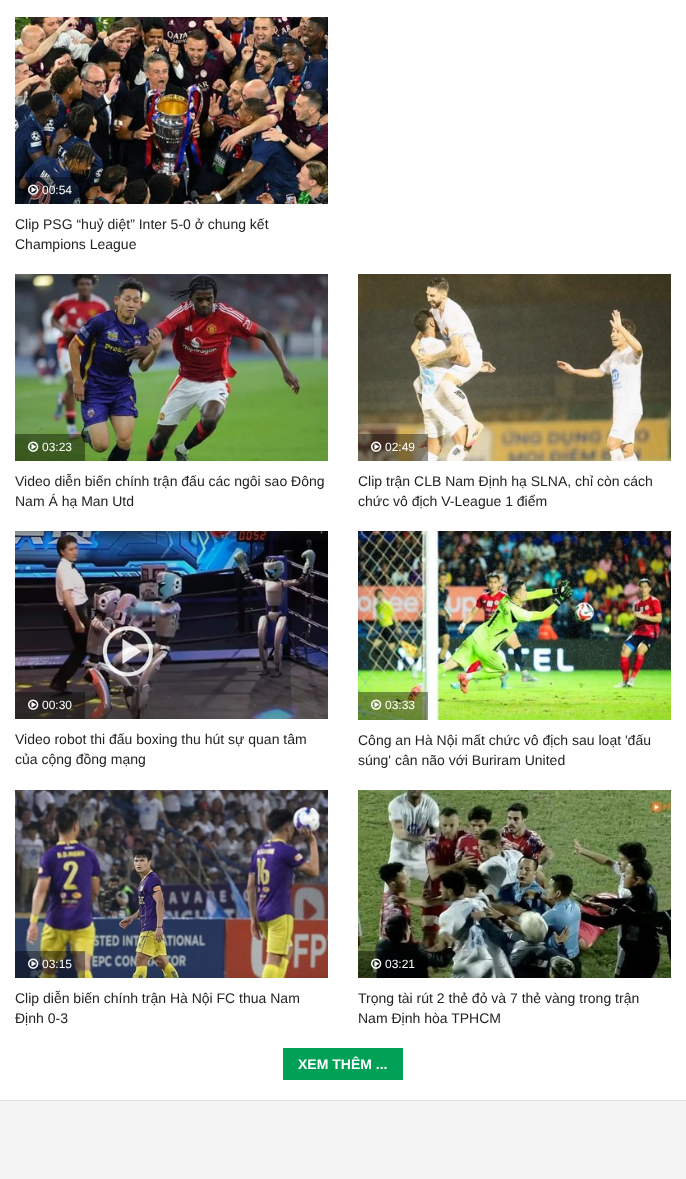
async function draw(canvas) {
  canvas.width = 686
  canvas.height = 1179
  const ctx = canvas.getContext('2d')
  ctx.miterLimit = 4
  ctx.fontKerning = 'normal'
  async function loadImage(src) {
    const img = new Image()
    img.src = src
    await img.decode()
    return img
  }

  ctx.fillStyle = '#fff'
  ctx.fillRect(0, 0, 686, 1179)
  ctx.drawImage(await loadImage('image0.png'), 15, 17, 313, 187)
  ctx.fillStyle = '#00000066'
  ctx.fillRect(15, 177, 70, 27)
  ctx.drawImage(await loadImage('image1.png'), 28, 184, 11, 11)
  ctx.font = '12px Liberation Sans'
  ctx.fillStyle = '#fff'
  ctx.fillText('00:54', 42, 194)
  ctx.font = '14px Liberation Sans'
  ctx.fillStyle = '#222'
  ctx.fillText('Clip PSG “huỷ diệt” Inter 5-0 ở chung kết', 15, 229)
  ctx.fillText('Champions League', 15, 249)
  ctx.drawImage(await loadImage('image2.png'), 15, 274, 313, 187)
  ctx.fillStyle = '#00000066'
  ctx.fillRect(15, 434, 70, 27)
  ctx.drawImage(await loadImage('image3.png'), 28, 441, 11, 11)
  ctx.font = '12px Liberation Sans'
  ctx.fillStyle = '#fff'
  ctx.fillText('03:23', 42, 451)
  ctx.font = '14px Liberation Sans'
  ctx.fillStyle = '#222'
  ctx.fillText('Video diễn biến chính trận đấu các ngôi sao Đông', 15, 486)
  ctx.fillText('Nam Á hạ Man Utd', 15, 506)
  ctx.drawImage(await loadImage('image4.png'), 358, 274, 313, 187)
  ctx.fillStyle = '#00000066'
  ctx.fillRect(358, 434, 70, 27)
  ctx.drawImage(await loadImage('image5.png'), 371, 441, 11, 11)
  ctx.font = '12px Liberation Sans'
  ctx.fillStyle = '#fff'
  ctx.fillText('02:49', 385, 451)
  ctx.font = '14px Liberation Sans'
  ctx.fillStyle = '#222'
  ctx.fillText('Clip trận CLB Nam Định hạ SLNA, chỉ còn cách', 358, 486)
  ctx.fillText('chức vô địch V-League 1 điểm', 358, 506)
  ctx.drawImage(await loadImage('image6.png'), 15, 531, 313, 188)
  ctx.fillStyle = '#00000066'
  ctx.fillRect(15, 692, 70, 27)
  ctx.drawImage(await loadImage('image7.png'), 28, 699, 11, 11)
  ctx.font = '12px Liberation Sans'
  ctx.fillStyle = '#fff'
  ctx.fillText('00:30', 42, 709)
  ctx.font = '14px Liberation Sans'
  ctx.fillStyle = '#222'
  ctx.fillText('Video robot thi đấu boxing thu hút sự quan tâm', 15, 744)
  ctx.fillText('của cộng đồng mạng', 15, 764)
  ctx.drawImage(await loadImage('image8.png'), 358, 531, 313, 189)
  ctx.fillStyle = '#00000066'
  ctx.fillRect(358, 692, 70, 28)
  ctx.drawImage(await loadImage('image9.png'), 371, 699, 11, 11)
  ctx.font = '12px Liberation Sans'
  ctx.fillStyle = '#fff'
  ctx.fillText('03:33', 385, 709)
  ctx.font = '14px Liberation Sans'
  ctx.fillStyle = '#222'
  ctx.fillText('Công an Hà Nội mất chức vô địch sau loạt \'đấu', 358, 745)
  ctx.fillText('súng\' cân não với Buriram United', 358, 765)
  ctx.drawImage(await loadImage('image10.png'), 15, 790, 313, 188)
  ctx.fillStyle = '#00000066'
  ctx.fillRect(15, 951, 70, 27)
  ctx.drawImage(await loadImage('image11.png'), 28, 958, 11, 11)
  ctx.font = '12px Liberation Sans'
  ctx.fillStyle = '#fff'
  ctx.fillText('03:15', 42, 968)
  ctx.font = '14px Liberation Sans'
  ctx.fillStyle = '#222'
  ctx.fillText('Clip diễn biến chính trận Hà Nội FC thua Nam', 15, 1003)
  ctx.fillText('Định 0-3', 15, 1023)
  ctx.drawImage(await loadImage('image12.png'), 358, 790, 313, 188)
  ctx.fillStyle = '#00000066'
  ctx.fillRect(358, 951, 70, 27)
  ctx.drawImage(await loadImage('image13.png'), 371, 958, 11, 11)
  ctx.font = '12px Liberation Sans'
  ctx.fillStyle = '#fff'
  ctx.fillText('03:21', 385, 968)
  ctx.font = '14px Liberation Sans'
  ctx.fillStyle = '#222'
  ctx.fillText('Trọng tài rút 2 thẻ đỏ và 7 thẻ vàng trong trận', 358, 1003)
  ctx.fillText('Nam Định hòa TPHCM', 358, 1023)
  ctx.fillStyle = '#00a156'
  ctx.fillRect(283, 1048, 120, 32)
  ctx.font = 'bold 14px Liberation Sans'
  ctx.fillStyle = '#fff'
  ctx.fillText('XEM THÊM ...', 298, 1069)
  ctx.fillStyle = '#f4f4f4'
  ctx.fillRect(0, 1101, 686, 78)
  ctx.fillStyle = '#dedede'
  ctx.fillRect(0, 1100, 686, 1)
}

draw(document.querySelector('canvas'))
